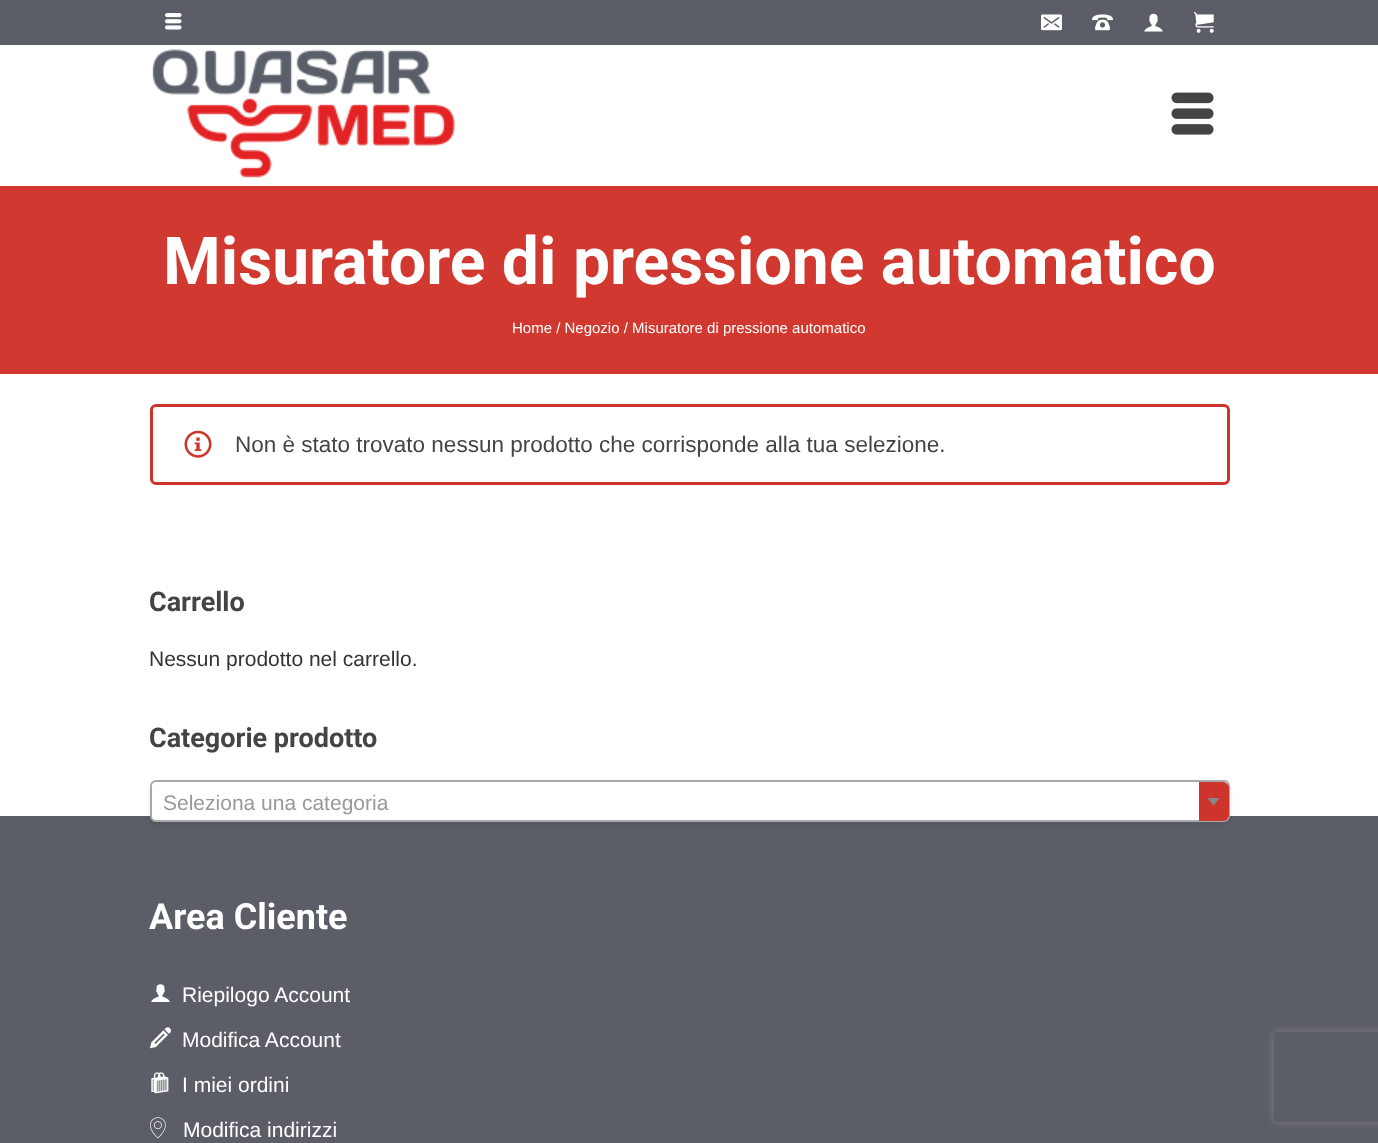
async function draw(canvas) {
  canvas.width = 1378
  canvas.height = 1143
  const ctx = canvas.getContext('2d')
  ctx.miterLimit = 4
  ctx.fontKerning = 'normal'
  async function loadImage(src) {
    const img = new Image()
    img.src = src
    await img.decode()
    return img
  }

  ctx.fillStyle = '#fff'
  ctx.fillRect(0, 0, 1378, 1143)
  ctx.fillStyle = '#5b5e67'
  ctx.fillRect(0, 0, 1378, 45)
  ctx.drawImage(await loadImage('image0.png'), 165, 13, 17, 17)
  ctx.drawImage(await loadImage('image1.png'), 1041, 14, 21, 17)
  ctx.drawImage(await loadImage('image2.png'), 1092, 14, 21, 17)
  ctx.drawImage(await loadImage('image3.png'), 1144, 13, 19, 19)
  ctx.drawImage(await loadImage('image4.png'), 1194, 11, 20, 22)
  ctx.drawImage(await loadImage('image5.png'), 152, 49, 303, 129)
  ctx.drawImage(await loadImage('image6.png'), 1171, 92, 43, 43)
  ctx.fillStyle = '#d13930'
  ctx.fillRect(0, 186, 1378, 188)
  ctx.font = 'bold 66px Roboto'
  ctx.fillStyle = '#fff'
  ctx.fillText('Misuratore di pressione automatico', 163, 284)
  ctx.font = '15px Liberation Sans'
  ctx.fillText('Home / Negozio / Misuratore di pressione automatico', 512, 333)
  ctx.beginPath()
  ctx.roundRect(151.5, 405.5, 1077, 78, 4.5)
  ctx.strokeStyle = '#cc342c'
  ctx.lineWidth = 3
  ctx.stroke()
  ctx.drawImage(await loadImage('image7.png'), 184, 430, 28, 28)
  ctx.font = '22.5px Liberation Sans'
  ctx.fillStyle = '#444'
  ctx.fillText('Non è stato trovato nessun prodotto che corrisponde alla tua selezione.', 235, 452)
  ctx.font = 'bold 27px Roboto'
  ctx.fillText('Carrello', 149, 611)
  ctx.font = '21px Liberation Sans'
  ctx.fillStyle = '#333'
  ctx.fillText('Nessun prodotto nel carrello.', 149, 666)
  ctx.font = 'bold 27px Roboto'
  ctx.fillStyle = '#444'
  ctx.fillText('Categorie prodotto', 149, 747)
  ctx.fillStyle = '#5b5e67'
  ctx.fillRect(0, 816, 1378, 327)
  ctx.fillStyle = '#0000001a'
  ctx.filter = 'blur(2px)'
  ctx.beginPath()
  ctx.roundRect(150, 782, 1080, 42, 6)
  ctx.fill()
  ctx.filter = 'none'
  ctx.fillStyle = '#fff'
  ctx.beginPath()
  ctx.roundRect(151, 781, 1078, 40, 5)
  ctx.fill()
  ctx.strokeStyle = '#aaa'
  ctx.lineWidth = 2
  ctx.stroke()
  ctx.font = '21px Liberation Sans'
  ctx.fillStyle = '#999'
  ctx.fillText('Seleziona una categoria', 163, 810)
  ctx.fillStyle = '#cc342c'
  ctx.beginPath()
  ctx.roundRect(1199, 782, 30, 39, [0, 6, 6, 0])
  ctx.fill()
  ctx.fillStyle = '#888'
  ctx.beginPath()
  ctx.moveTo(1207.5, 798)
  ctx.lineTo(1219.5, 798)
  ctx.lineTo(1213.5, 805.5)
  ctx.closePath()
  ctx.fill()
  ctx.font = 'bold 36px Roboto'
  ctx.fillStyle = '#fff'
  ctx.fillText('Area Cliente', 149, 929)
  ctx.drawImage(await loadImage('image8.png'), 151, 984, 19, 18)
  ctx.font = '21px Liberation Sans'
  ctx.fillText('Riepilogo Account', 182, 1002)
  ctx.drawImage(await loadImage('image9.png'), 150, 1027, 21, 22)
  ctx.fillText('Modifica Account', 182, 1047)
  ctx.drawImage(await loadImage('image10.png'), 151, 1072, 18, 22)
  ctx.fillText('I miei ordini', 182, 1092)
  ctx.drawImage(await loadImage('image11.png'), 150, 1117, 16, 22)
  ctx.fillText('Modifica indirizzi', 183, 1137)
  ctx.save()
  ctx.beginPath()
  ctx.moveTo(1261, 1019)
  ctx.lineTo(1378, 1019)
  ctx.lineTo(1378, 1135)
  ctx.lineTo(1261, 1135)
  ctx.closePath()
  ctx.moveTo(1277, 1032)
  ctx.lineTo(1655, 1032)
  ctx.bezierCurveTo(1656.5, 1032, 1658, 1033.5, 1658, 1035)
  ctx.lineTo(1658, 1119)
  ctx.bezierCurveTo(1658, 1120.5, 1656.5, 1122, 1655, 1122)
  ctx.lineTo(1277, 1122)
  ctx.bezierCurveTo(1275.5, 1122, 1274, 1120.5, 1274, 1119)
  ctx.lineTo(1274, 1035)
  ctx.bezierCurveTo(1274, 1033.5, 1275.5, 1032, 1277, 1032)
  ctx.closePath()
  ctx.clip('evenodd')
  ctx.fillStyle = '#808080'
  ctx.filter = 'blur(4px)'
  ctx.beginPath()
  ctx.roundRect(1274, 1032, 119, 90, 3)
  ctx.fill()
  ctx.filter = 'none'
  ctx.restore()
}

draw(document.querySelector('canvas'))
